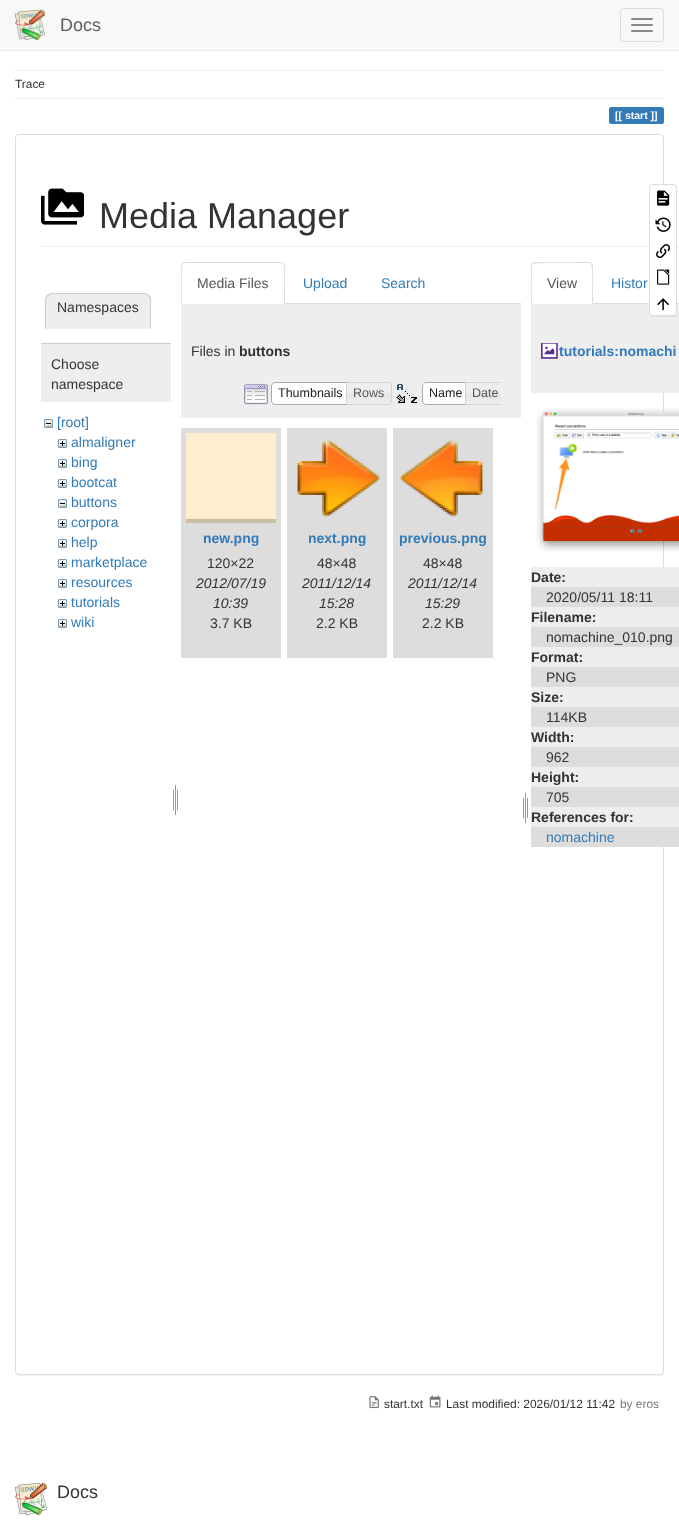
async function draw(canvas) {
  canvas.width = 679
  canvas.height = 1528
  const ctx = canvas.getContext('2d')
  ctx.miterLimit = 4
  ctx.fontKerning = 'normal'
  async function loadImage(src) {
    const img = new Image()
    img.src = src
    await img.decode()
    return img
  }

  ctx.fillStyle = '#fff'
  ctx.fillRect(0, 0, 679, 1528)
  ctx.fillStyle = '#f8f8f8'
  ctx.fillRect(0, 0, 679, 50)
  ctx.fillStyle = '#e7e7e7'
  ctx.fillRect(0, 50, 679, 1)
  ctx.drawImage(await loadImage('image0.png'), 15, 10, 30, 30)
  ctx.font = '18px Liberation Sans'
  ctx.fillStyle = '#5e5e5e'
  ctx.fillText('Docs', 60, 31)
  ctx.beginPath()
  ctx.roundRect(620.5, 8.5, 43, 33, 3.5)
  ctx.strokeStyle = '#ddd'
  ctx.stroke()
  ctx.fillStyle = '#888'
  ctx.beginPath()
  ctx.roundRect(631, 18, 22, 2, 1)
  ctx.fill()
  ctx.beginPath()
  ctx.roundRect(631, 24, 22, 2, 1)
  ctx.fill()
  ctx.beginPath()
  ctx.roundRect(631, 30, 22, 2, 1)
  ctx.fill()
  ctx.fillStyle = '#eee'
  ctx.fillRect(15, 70, 649, 1)
  ctx.font = '11.9px Liberation Sans'
  ctx.fillStyle = '#333'
  ctx.fillText('Trace', 15, 88)
  ctx.fillStyle = '#eee'
  ctx.fillRect(15, 98, 649, 1)
  ctx.fillStyle = '#337ab7'
  ctx.beginPath()
  ctx.roundRect(609, 107, 16, 17, [2.5, 0, 0, 2.5])
  ctx.fill()
  ctx.fillRect(625, 107, 23, 17)
  ctx.beginPath()
  ctx.roundRect(648, 107, 16, 17, [0, 2.5, 2.5, 0])
  ctx.fill()
  ctx.font = 'bold 10.5px Liberation Sans'
  ctx.fillStyle = '#fff'
  ctx.fillText('[[ start ]]', 615, 119)
  ctx.fillStyle = '#0000000d'
  ctx.filter = 'blur(0.5px)'
  ctx.beginPath()
  ctx.roundRect(15, 135, 649, 1241, 4)
  ctx.fill()
  ctx.filter = 'none'
  ctx.fillStyle = '#fff'
  ctx.beginPath()
  ctx.roundRect(15.5, 134.5, 648, 1240, 3.5)
  ctx.fill()
  ctx.stroke()
  ctx.fillStyle = '#eee'
  ctx.fillRect(41, 246, 638, 1)
  ctx.fillStyle = '#ddd'
  ctx.fillRect(593, 303, 86, 1)
  ctx.fillStyle = '#eee'
  ctx.fillRect(531, 304, 148, 89)
  ctx.fillStyle = '#0000000d'
  ctx.filter = 'blur(0.5px)'
  ctx.beginPath()
  ctx.roundRect(649, 185, 28, 132, 4)
  ctx.fill()
  ctx.filter = 'none'
  ctx.fillStyle = '#fff'
  ctx.beginPath()
  ctx.roundRect(649.5, 184.5, 27, 131, 3.5)
  ctx.fill()
  ctx.stroke()
  ctx.drawImage(await loadImage('image1.png'), 657, 190, 13, 16)
  ctx.drawImage(await loadImage('image2.png'), 655, 217, 16, 15)
  ctx.drawImage(await loadImage('image3.png'), 656, 244, 15, 15)
  ctx.drawImage(await loadImage('image4.png'), 657, 269, 13, 16)
  ctx.drawImage(await loadImage('image5.png'), 657, 298, 12, 13)
  ctx.drawImage(await loadImage('image6.png'), 41, 188, 43, 37)
  ctx.font = '36px Liberation Sans'
  ctx.fillStyle = '#333'
  ctx.fillText('Media Manager', 99, 228)
  ctx.fillStyle = '#eee'
  ctx.beginPath()
  ctx.roundRect(45, 293, 106, 36, [7, 7, 0, 0])
  ctx.fill()
  ctx.fillStyle = '#ccc'
  ctx.beginPath()
  ctx.moveTo(52, 293)
  ctx.bezierCurveTo(50, 293, 48, 294, 47, 295)
  ctx.lineTo(48, 296)
  ctx.lineTo(51, 294)
  ctx.lineTo(145, 294)
  ctx.lineTo(148, 296)
  ctx.lineTo(149, 295)
  ctx.bezierCurveTo(148, 294, 146, 293, 144, 293)
  ctx.closePath()
  ctx.fill()
  ctx.beginPath()
  ctx.moveTo(151, 329)
  ctx.lineTo(151, 300)
  ctx.bezierCurveTo(151, 298, 150, 296, 149, 295)
  ctx.lineTo(148, 296)
  ctx.bezierCurveTo(149, 297, 150, 298.5, 150, 300)
  ctx.lineTo(150, 328)
  ctx.closePath()
  ctx.fill()
  ctx.fillStyle = '#eee'
  ctx.beginPath()
  ctx.moveTo(151, 329)
  ctx.lineTo(150, 328)
  ctx.lineTo(46, 328)
  ctx.lineTo(45, 329)
  ctx.closePath()
  ctx.fill()
  ctx.fillStyle = '#ccc'
  ctx.beginPath()
  ctx.moveTo(45, 329)
  ctx.lineTo(46, 328)
  ctx.lineTo(46, 300)
  ctx.bezierCurveTo(46, 298.5, 47, 297, 48, 296)
  ctx.lineTo(47, 295)
  ctx.bezierCurveTo(46, 296, 45, 298, 45, 300)
  ctx.closePath()
  ctx.fill()
  ctx.font = '14px Liberation Sans'
  ctx.fillStyle = '#333'
  ctx.fillText('Namespaces', 57, 312)
  ctx.fillStyle = '#eee'
  ctx.fillRect(41, 344, 130, 58)
  ctx.fillStyle = '#ccc'
  ctx.fillRect(41, 343, 130, 1)
  ctx.fillStyle = '#333'
  ctx.fillText('Choose', 51, 369)
  ctx.fillText('namespace', 51, 389)
  ctx.drawImage(await loadImage('image7.png'), 44, 419, 9, 9)
  ctx.fillStyle = '#337ab7'
  ctx.fillText('[root]', 57, 427)
  ctx.drawImage(await loadImage('image8.png'), 58, 439, 9, 9)
  ctx.fillText('almaligner', 71, 447)
  ctx.drawImage(await loadImage('image8.png'), 58, 459, 9, 9)
  ctx.fillText('bing', 71, 467)
  ctx.drawImage(await loadImage('image8.png'), 58, 479, 9, 9)
  ctx.fillText('bootcat', 71, 487)
  ctx.drawImage(await loadImage('image7.png'), 58, 499, 9, 9)
  ctx.fillText('buttons', 71, 507)
  ctx.drawImage(await loadImage('image8.png'), 58, 519, 9, 9)
  ctx.fillText('corpora', 71, 527)
  ctx.drawImage(await loadImage('image8.png'), 58, 539, 9, 9)
  ctx.fillText('help', 71, 547)
  ctx.drawImage(await loadImage('image8.png'), 58, 559, 9, 9)
  ctx.fillText('marketplace', 71, 567)
  ctx.drawImage(await loadImage('image8.png'), 58, 579, 9, 9)
  ctx.fillText('resources', 71, 587)
  ctx.drawImage(await loadImage('image8.png'), 58, 599, 9, 9)
  ctx.fillText('tutorials', 71, 607)
  ctx.drawImage(await loadImage('image8.png'), 58, 619, 9, 9)
  ctx.fillText('wiki', 71, 627)
  ctx.drawImage(await loadImage('image9.png'), 173, 784, 5, 31)
  ctx.fillStyle = '#ddd'
  ctx.fillRect(285, 303, 236, 1)
  ctx.beginPath()
  ctx.moveTo(185, 262)
  ctx.lineTo(182, 263)
  ctx.lineTo(183, 264)
  ctx.lineTo(185, 263)
  ctx.lineTo(281, 263)
  ctx.lineTo(283, 264)
  ctx.lineTo(284, 263)
  ctx.lineTo(281, 262)
  ctx.closePath()
  ctx.fill()
  ctx.beginPath()
  ctx.moveTo(285, 304)
  ctx.lineTo(285, 266)
  ctx.bezierCurveTo(285, 265, 284, 264, 284, 263)
  ctx.lineTo(283, 264)
  ctx.bezierCurveTo(285, 266, 284, 298, 284, 303)
  ctx.closePath()
  ctx.fill()
  ctx.beginPath()
  ctx.moveTo(181, 304)
  ctx.lineTo(182, 303)
  ctx.bezierCurveTo(182, 298, 181, 266, 183, 264)
  ctx.lineTo(182, 263)
  ctx.lineTo(181, 266)
  ctx.closePath()
  ctx.fill()
  ctx.fillStyle = '#555'
  ctx.fillText('Media Files', 197, 288)
  ctx.fillStyle = '#337ab7'
  ctx.fillText('Upload', 303, 288)
  ctx.fillText('Search', 381, 288)
  ctx.fillStyle = '#eee'
  ctx.fillRect(181, 304, 340, 114)
  ctx.fillStyle = '#333'
  ctx.fillText('Files in', 191, 356)
  ctx.font = 'bold 14px Liberation Sans'
  ctx.fillText('buttons', 239, 356)
  ctx.drawImage(await loadImage('image10.png'), 244, 384, 24, 21)
  ctx.fillStyle = '#fff'
  ctx.fillRect(271, 382, 75, 23)
  ctx.beginPath()
  ctx.roundRect(271.5, 382.5, 79, 22, [3.5, 0, 0, 3.5])
  ctx.strokeStyle = '#aaa'
  ctx.stroke()
  ctx.font = '12.5px Liberation Sans'
  ctx.fillStyle = '#212121'
  ctx.fillText('Thumbnails', 278, 397)
  ctx.drawImage(await loadImage('image11.png'), 347, 382, 45, 23)
  ctx.beginPath()
  ctx.roundRect(346.5, 382.5, 45, 22, [0, 3.5, 3.5, 0])
  ctx.strokeStyle = '#d3d3d3'
  ctx.stroke()
  ctx.fillStyle = '#555'
  ctx.fillText('Rows', 353, 397)
  ctx.drawImage(await loadImage('image12.png'), 396, 384, 21, 19)
  ctx.fillStyle = '#fff'
  ctx.fillRect(422, 382, 43, 23)
  ctx.beginPath()
  ctx.roundRect(422.5, 382.5, 47, 22, [3.5, 0, 0, 3.5])
  ctx.strokeStyle = '#aaa'
  ctx.stroke()
  ctx.fillStyle = '#212121'
  ctx.fillText('Name', 429, 397)
  ctx.drawImage(await loadImage('image13.png'), 466, 383, 35, 21)
  ctx.save()
  ctx.beginPath()
  ctx.rect(236, 382, 265, 28)
  ctx.clip()
  ctx.beginPath()
  ctx.roundRect(465.5, 382.5, 40, 22, [0, 3.5, 3.5, 0])
  ctx.strokeStyle = '#d3d3d3'
  ctx.stroke()
  ctx.restore()
  ctx.fillStyle = '#555'
  ctx.fillText('Date', 472, 397)
  ctx.fillStyle = '#ddd'
  ctx.fillRect(181, 428, 100, 230)
  ctx.drawImage(await loadImage('image14.png'), 186, 433, 90, 90)
  ctx.font = 'bold 14px Liberation Sans'
  ctx.fillStyle = '#337ab7'
  ctx.fillText('new.png', 203, 543)
  ctx.font = '14px Liberation Sans'
  ctx.fillStyle = '#333'
  ctx.fillText('120×22', 207, 568)
  ctx.font = 'italic 14px Liberation Sans'
  ctx.fillText('2012/07/19', 196, 588)
  ctx.fillText('10:39', 213, 608)
  ctx.font = '14px Liberation Sans'
  ctx.fillText('3.7 KB', 210, 628)
  ctx.fillStyle = '#ddd'
  ctx.fillRect(287, 428, 100, 230)
  ctx.drawImage(await loadImage('image15.png'), 297, 440, 84, 78)
  ctx.font = 'bold 14px Liberation Sans'
  ctx.fillStyle = '#337ab7'
  ctx.fillText('next.png', 308, 543)
  ctx.font = '14px Liberation Sans'
  ctx.fillStyle = '#333'
  ctx.fillText('48×48', 317, 568)
  ctx.font = 'italic 14px Liberation Sans'
  ctx.fillText('2011/12/14', 302, 588)
  ctx.fillText('15:28', 319, 608)
  ctx.font = '14px Liberation Sans'
  ctx.fillText('2.2 KB', 316, 628)
  ctx.fillStyle = '#ddd'
  ctx.fillRect(393, 428, 100, 230)
  ctx.drawImage(await loadImage('image16.png'), 399, 440, 85, 78)
  ctx.font = 'bold 14px Liberation Sans'
  ctx.fillStyle = '#337ab7'
  ctx.fillText('previous.png', 399, 543)
  ctx.font = '14px Liberation Sans'
  ctx.fillStyle = '#333'
  ctx.fillText('48×48', 423, 568)
  ctx.font = 'italic 14px Liberation Sans'
  ctx.fillText('2011/12/14', 408, 588)
  ctx.fillText('15:29', 425, 608)
  ctx.font = '14px Liberation Sans'
  ctx.fillText('2.2 KB', 422, 628)
  ctx.drawImage(await loadImage('image9.png'), 523, 792, 5, 31)
  ctx.fillStyle = '#ddd'
  ctx.beginPath()
  ctx.moveTo(535, 262)
  ctx.lineTo(532, 263)
  ctx.lineTo(533, 264)
  ctx.bezierCurveTo(535, 262, 584, 263, 589, 263)
  ctx.lineTo(591, 264)
  ctx.lineTo(592, 263)
  ctx.lineTo(589, 262)
  ctx.closePath()
  ctx.fill()
  ctx.beginPath()
  ctx.moveTo(593, 304)
  ctx.lineTo(593, 266)
  ctx.bezierCurveTo(593, 265, 592, 264, 592, 263)
  ctx.lineTo(591, 264)
  ctx.bezierCurveTo(593, 266, 592, 298, 592, 303)
  ctx.closePath()
  ctx.moveTo(531, 304)
  ctx.lineTo(532, 303)
  ctx.bezierCurveTo(532, 298, 531, 266, 533, 264)
  ctx.lineTo(532, 263)
  ctx.lineTo(531, 266)
  ctx.closePath()
  ctx.fill()
  ctx.fillStyle = '#555'
  ctx.fillText('View', 547, 288)
  ctx.fillStyle = '#337ab7'
  ctx.fillText('Histor', 611, 288)
  ctx.drawImage(await loadImage('image17.png'), 541, 343, 17, 16)
  ctx.font = 'bold 14px Liberation Sans'
  ctx.fillText('tutorials:nomachi', 559, 356)
  ctx.drawImage(await loadImage('image18.png'), 536, 408, 143, 144)
  ctx.fillStyle = '#eee'
  ctx.fillRect(531, 567, 148, 20)
  ctx.fillStyle = '#333'
  ctx.fillText('Date:', 531, 582)
  ctx.fillStyle = '#ddd'
  ctx.fillRect(531, 587, 148, 20)
  ctx.font = '14px Liberation Sans'
  ctx.fillStyle = '#333'
  ctx.fillText('2020/05/11 18:11', 546, 602)
  ctx.fillStyle = '#eee'
  ctx.fillRect(531, 607, 148, 20)
  ctx.font = 'bold 14px Liberation Sans'
  ctx.fillStyle = '#333'
  ctx.fillText('Filename:', 531, 622)
  ctx.fillStyle = '#ddd'
  ctx.fillRect(531, 627, 148, 20)
  ctx.font = '14px Liberation Sans'
  ctx.fillStyle = '#333'
  ctx.fillText('nomachine_010.png', 546, 642)
  ctx.fillStyle = '#eee'
  ctx.fillRect(531, 647, 148, 20)
  ctx.font = 'bold 14px Liberation Sans'
  ctx.fillStyle = '#333'
  ctx.fillText('Format:', 531, 662)
  ctx.fillStyle = '#ddd'
  ctx.fillRect(531, 667, 148, 20)
  ctx.font = '14px Liberation Sans'
  ctx.fillStyle = '#333'
  ctx.fillText('PNG', 546, 682)
  ctx.fillStyle = '#eee'
  ctx.fillRect(531, 687, 148, 20)
  ctx.font = 'bold 14px Liberation Sans'
  ctx.fillStyle = '#333'
  ctx.fillText('Size:', 531, 702)
  ctx.fillStyle = '#ddd'
  ctx.fillRect(531, 707, 148, 20)
  ctx.font = '14px Liberation Sans'
  ctx.fillStyle = '#333'
  ctx.fillText('114KB', 546, 722)
  ctx.fillStyle = '#eee'
  ctx.fillRect(531, 727, 148, 20)
  ctx.font = 'bold 14px Liberation Sans'
  ctx.fillStyle = '#333'
  ctx.fillText('Width:', 531, 742)
  ctx.fillStyle = '#ddd'
  ctx.fillRect(531, 747, 148, 20)
  ctx.font = '14px Liberation Sans'
  ctx.fillStyle = '#333'
  ctx.fillText('962', 546, 762)
  ctx.fillStyle = '#eee'
  ctx.fillRect(531, 767, 148, 20)
  ctx.font = 'bold 14px Liberation Sans'
  ctx.fillStyle = '#333'
  ctx.fillText('Height:', 531, 782)
  ctx.fillStyle = '#ddd'
  ctx.fillRect(531, 787, 148, 20)
  ctx.font = '14px Liberation Sans'
  ctx.fillStyle = '#333'
  ctx.fillText('705', 546, 802)
  ctx.fillStyle = '#eee'
  ctx.fillRect(531, 807, 148, 20)
  ctx.font = 'bold 14px Liberation Sans'
  ctx.fillStyle = '#333'
  ctx.fillText('References for:', 531, 822)
  ctx.fillStyle = '#ddd'
  ctx.fillRect(531, 827, 148, 20)
  ctx.font = '14px Liberation Sans'
  ctx.fillStyle = '#337ab7'
  ctx.fillText('nomachine', 546, 842)
  ctx.drawImage(await loadImage('image19.png'), 369, 1396, 10, 13)
  ctx.font = '11.9px Liberation Sans'
  ctx.fillStyle = '#333'
  ctx.fillText('start.txt', 384, 1408)
  ctx.drawImage(await loadImage('image20.png'), 429, 1395, 12, 13)
  ctx.fillText('Last modified: 2026/01/12 11:42', 446, 1408)
  ctx.fillStyle = '#777'
  ctx.fillText('by eros', 620, 1408)
  ctx.drawImage(await loadImage('image21.png'), 15, 1483, 32, 32)
  ctx.font = '18px Liberation Sans'
  ctx.fillStyle = '#333'
  ctx.fillText('Docs', 57, 1498)
}

draw(document.querySelector('canvas'))
